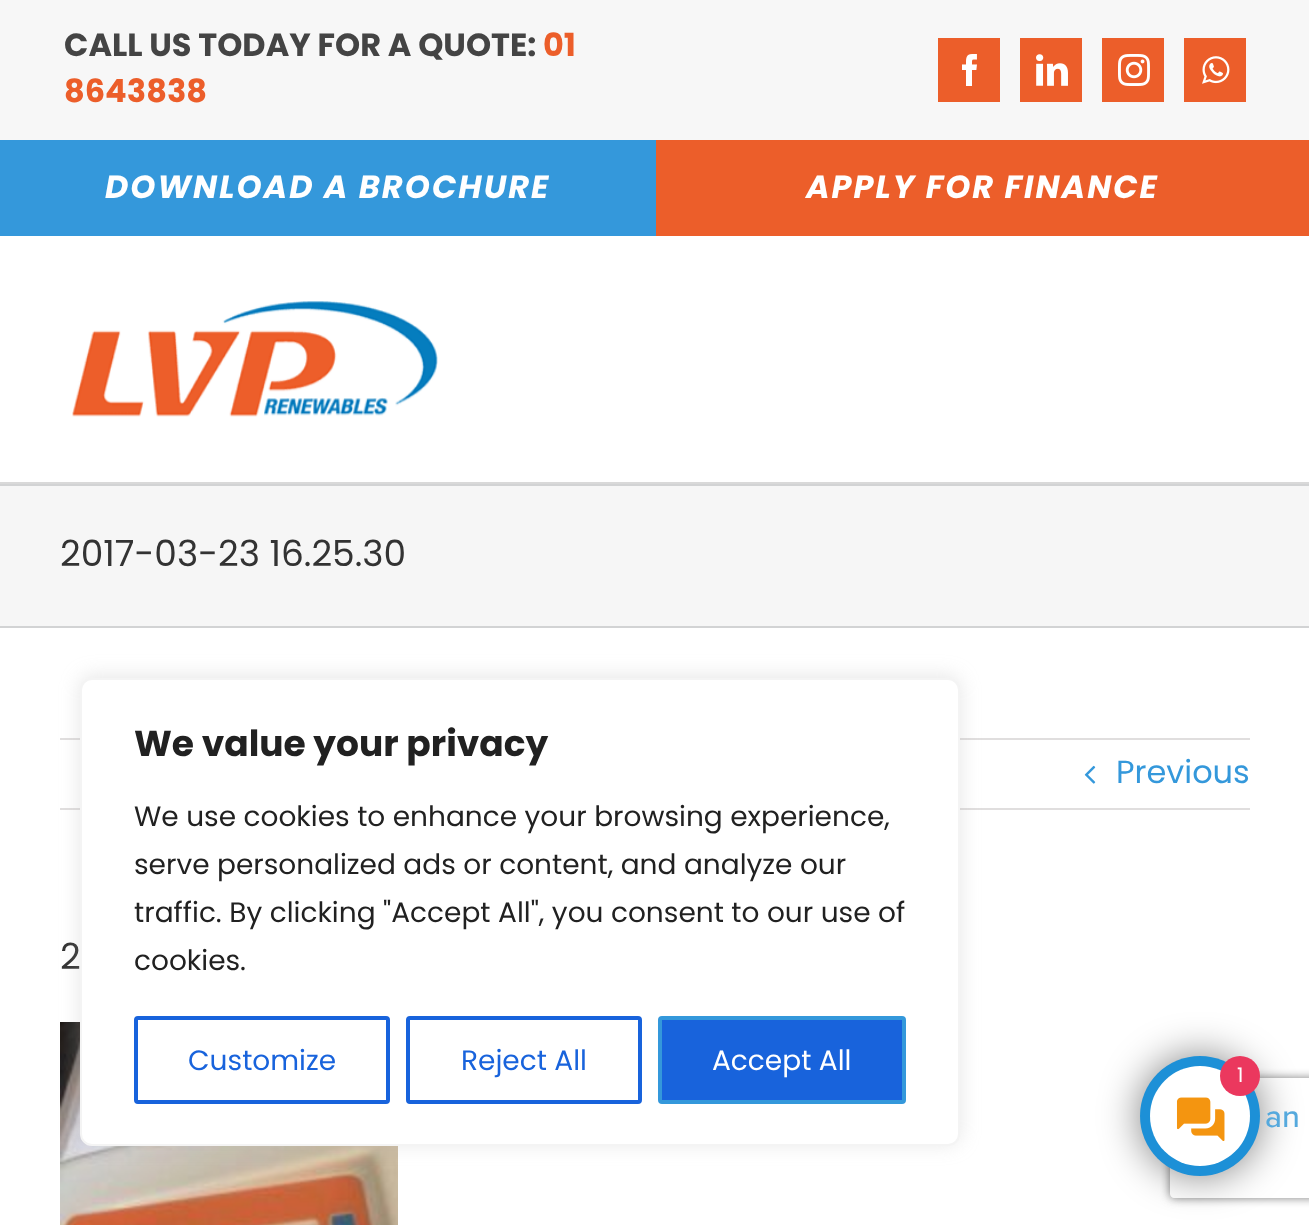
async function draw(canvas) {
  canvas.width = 1309
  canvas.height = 1225
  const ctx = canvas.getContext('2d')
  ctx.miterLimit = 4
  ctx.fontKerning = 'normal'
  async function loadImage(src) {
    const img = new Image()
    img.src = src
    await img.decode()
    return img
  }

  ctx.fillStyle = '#fff'
  ctx.fillRect(0, 0, 1309, 1225)
  ctx.fillStyle = '#f7f7f7'
  ctx.fillRect(0, 0, 1309, 140)
  ctx.font = 'bold 32px Poppins'
  ctx.fillStyle = '#444'
  ctx.fillText('CALL US TODAY FOR A QUOTE:', 64, 56)
  ctx.fillStyle = '#ec5e2a'
  ctx.fillText('01', 543, 56)
  ctx.fillText('8643838', 64, 102)
  ctx.fillRect(938, 38, 62, 64)
  ctx.drawImage(await loadImage('image0.png'), 962, 54, 15, 32)
  ctx.fillRect(1020, 38, 62, 64)
  ctx.drawImage(await loadImage('image1.png'), 1036, 54, 32, 32)
  ctx.fillRect(1102, 38, 62, 64)
  ctx.drawImage(await loadImage('image2.png'), 1118, 54, 32, 32)
  ctx.fillRect(1184, 38, 62, 64)
  ctx.drawImage(await loadImage('image3.png'), 1202, 56, 28, 28)
  ctx.fillStyle = '#3498db'
  ctx.fillRect(0, 140, 656, 96)
  ctx.letterSpacing = '2px'
  ctx.font = 'italic bold 32px Poppins'
  ctx.fillStyle = '#fff'
  ctx.fillText('DOWNLOAD A BROCHURE', 105, 198)
  ctx.fillStyle = '#ec5e2a'
  ctx.fillRect(656, 140, 653, 96)
  ctx.fillStyle = '#fff'
  ctx.fillText('APPLY FOR FINANCE', 806, 198)
  ctx.fillStyle = '#d9d9d9'
  ctx.fillRect(0, 482, 1309, 2)
  ctx.drawImage(await loadImage('image4.png'), 72, 301, 366, 116)
  ctx.fillStyle = '#f6f6f6'
  ctx.fillRect(0, 486, 1309, 140)
  ctx.fillStyle = '#d2d3d4'
  ctx.fillRect(0, 484, 1309, 2)
  ctx.fillRect(0, 626, 1309, 2)
  ctx.letterSpacing = '0px'
  ctx.font = '36px Poppins'
  ctx.fillStyle = '#333'
  ctx.fillText('2017-03-23 16.25.30', 60, 566)
  ctx.fillStyle = '#e0dede'
  ctx.fillRect(60, 738, 1190, 2)
  ctx.fillRect(60, 808, 1190, 2)
  ctx.drawImage(await loadImage('image5.png'), 1084, 765, 12, 19)
  ctx.font = '32px Poppins'
  ctx.fillStyle = '#3498db'
  ctx.fillText('Previous', 1116, 783)
  ctx.font = '36px Poppins'
  ctx.fillStyle = '#333'
  ctx.fillText('2', 60, 969)
  ctx.drawImage(await loadImage('image6.png'), 60, 1022, 338, 203)
  ctx.fillStyle = '#acabab4d'
  ctx.filter = 'blur(10px)'
  ctx.beginPath()
  ctx.roundRect(80, 676, 880, 468, 12)
  ctx.fill()
  ctx.filter = 'none'
  ctx.fillStyle = '#fff'
  ctx.beginPath()
  ctx.roundRect(81, 679, 878, 466, 11)
  ctx.fill()
  ctx.strokeStyle = '#f4f4f4'
  ctx.lineWidth = 2
  ctx.stroke()
  ctx.font = 'bold 36px Poppins'
  ctx.fillStyle = '#212121'
  ctx.fillText('We value your privacy', 134, 756)
  ctx.font = '28px Poppins'
  ctx.fillText('We use cookies to enhance your browsing experience,', 134, 826)
  ctx.fillText('serve personalized ads or content, and analyze our', 134, 874)
  ctx.fillText('traffic. By clicking "Accept All", you consent to our use of', 134, 922)
  ctx.fillText('cookies.', 134, 970)
  ctx.beginPath()
  ctx.roundRect(136, 1018, 252, 84, 2)
  ctx.strokeStyle = '#1863dc'
  ctx.lineWidth = 4
  ctx.stroke()
  ctx.fillStyle = '#1863dc'
  ctx.fillText('Customize', 188, 1070)
  ctx.beginPath()
  ctx.roundRect(408, 1018, 232, 84, 2)
  ctx.stroke()
  ctx.fillText('Reject All', 461, 1070)
  ctx.beginPath()
  ctx.roundRect(660, 1018, 244, 84, 2)
  ctx.fill()
  ctx.strokeStyle = '#3498db'
  ctx.stroke()
  ctx.fillStyle = '#fff'
  ctx.fillText('Accept All', 712, 1070)
  ctx.save()
  ctx.beginPath()
  ctx.moveTo(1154, 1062)
  ctx.lineTo(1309, 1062)
  ctx.lineTo(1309, 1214)
  ctx.lineTo(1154, 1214)
  ctx.closePath()
  ctx.moveTo(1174, 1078)
  ctx.lineTo(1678, 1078)
  ctx.bezierCurveTo(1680, 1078, 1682, 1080, 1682, 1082)
  ctx.lineTo(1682, 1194)
  ctx.bezierCurveTo(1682, 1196, 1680, 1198, 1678, 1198)
  ctx.lineTo(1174, 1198)
  ctx.bezierCurveTo(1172, 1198, 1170, 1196, 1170, 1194)
  ctx.lineTo(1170, 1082)
  ctx.bezierCurveTo(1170, 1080, 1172, 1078, 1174, 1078)
  ctx.closePath()
  ctx.clip('evenodd')
  ctx.fillStyle = '#808080'
  ctx.filter = 'blur(5px)'
  ctx.beginPath()
  ctx.roundRect(1170, 1078, 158, 120, 4)
  ctx.fill()
  ctx.filter = 'none'
  ctx.restore()
  ctx.fillStyle = '#00000080'
  ctx.filter = 'blur(20px)'
  ctx.beginPath()
  ctx.roundRect(1140, 1056, 120, 120, 60)
  ctx.fill()
  ctx.filter = 'none'
  ctx.fillStyle = '#1d90d7'
  ctx.beginPath()
  ctx.arc(1200, 1116, 60, 0, 2 * Math.PI)
  ctx.fill()
  ctx.fillStyle = '#fff'
  ctx.beginPath()
  ctx.arc(1200, 1116, 50, 0, 2 * Math.PI)
  ctx.fill()
  ctx.drawImage(await loadImage('image7.png'), 1176, 1097, 49, 44)
  ctx.fillStyle = '#eb385e'
  ctx.beginPath()
  ctx.arc(1240, 1076, 20, 0, 2 * Math.PI)
  ctx.fill()
  ctx.font = '20px Poppins'
  ctx.fillStyle = '#fff'
  ctx.fillText('1', 1237, 1082)
  ctx.font = '500 32px Proxima Nova'
  ctx.fillStyle = '#55a9dd'
  ctx.fillText('an', 1265, 1127)
}

draw(document.querySelector('canvas'))
